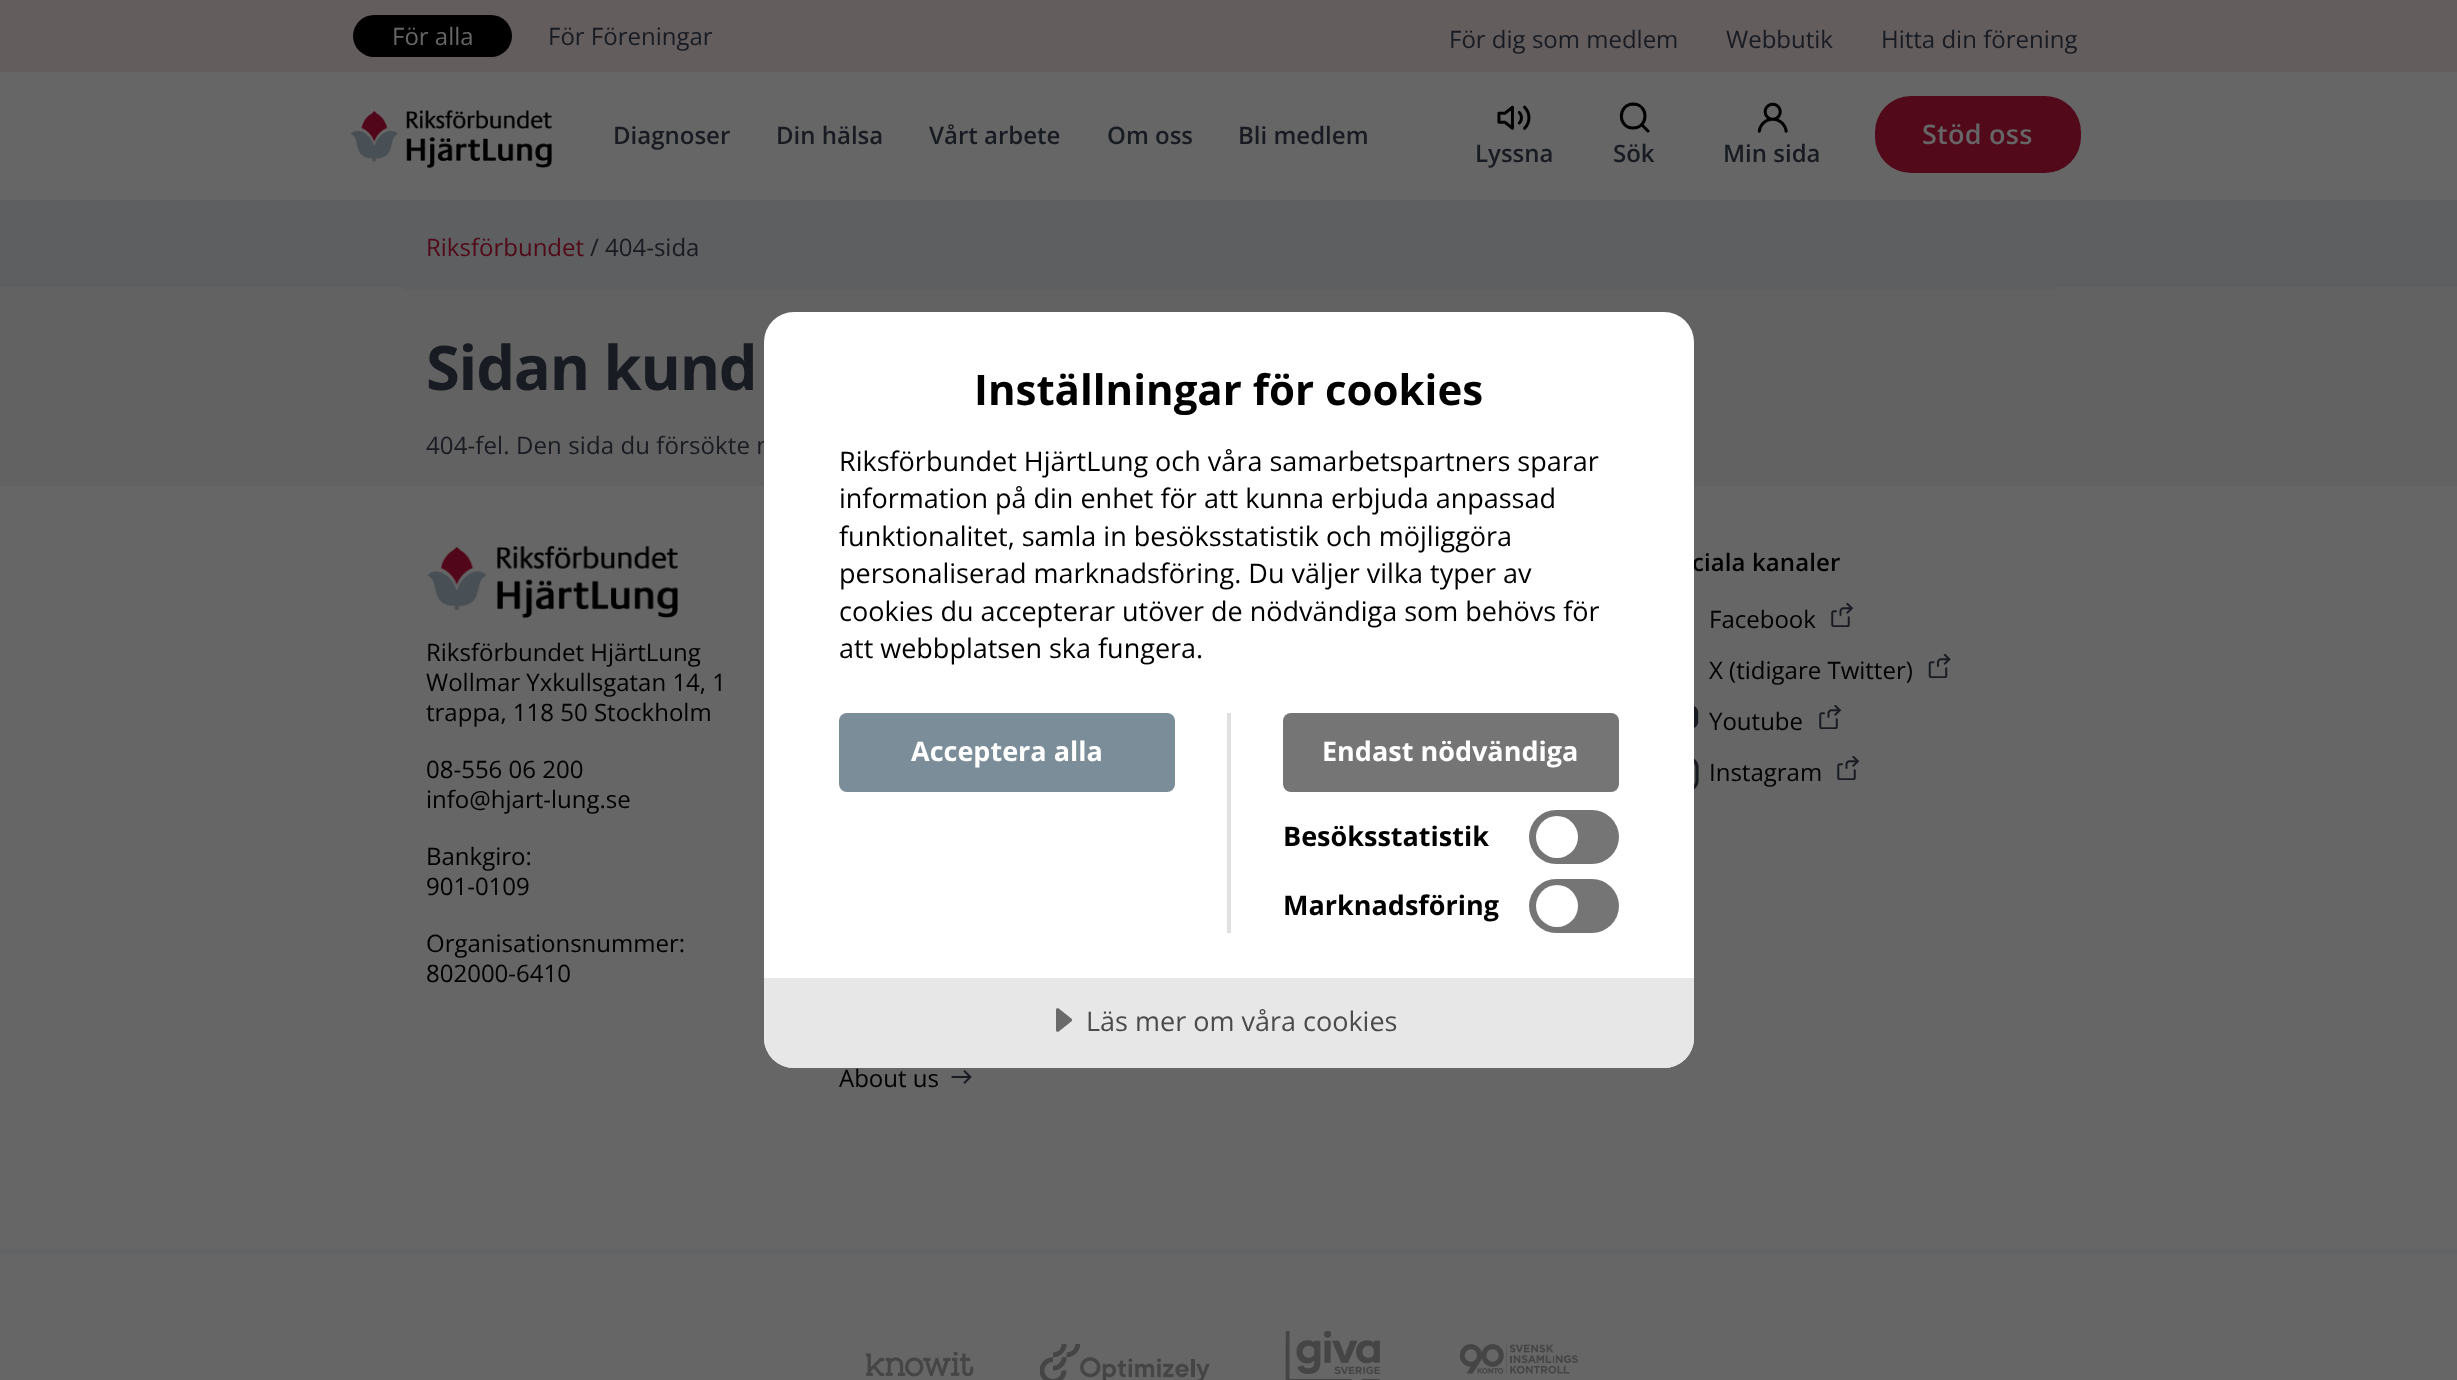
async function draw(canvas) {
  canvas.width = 2457
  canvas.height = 1380
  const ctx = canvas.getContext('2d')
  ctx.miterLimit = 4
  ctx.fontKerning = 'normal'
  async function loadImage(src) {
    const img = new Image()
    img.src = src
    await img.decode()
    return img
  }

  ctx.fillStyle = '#626262'
  ctx.fillRect(0, 0, 2457, 1380)
  ctx.fillStyle = '#645d5e'
  ctx.fillRect(0, 0, 2457, 72)
  ctx.fillStyle = '#000'
  ctx.beginPath()
  ctx.roundRect(353, 15, 159, 42, 21)
  ctx.fill()
  ctx.font = '24px Open Sans'
  ctx.fillStyle = '#666'
  ctx.fillText('För alla', 392, 45)
  ctx.fillStyle = '#181b21'
  ctx.fillText('För Föreningar', 548, 45)
  ctx.fillText('För dig som medlem', 1449, 48)
  ctx.fillText('Webbutik', 1726, 48)
  ctx.fillText('Hitta din förening', 1881, 48)
  ctx.fillStyle = '#666'
  ctx.fillRect(0, 72, 2457, 128)
  ctx.drawImage(await loadImage('image0.png'), 350, 110, 202, 58)
  ctx.font = '600 24px Open Sans'
  ctx.fillStyle = '#181b21'
  ctx.fillText('Diagnoser', 613, 144)
  ctx.fillText('Din hälsa', 776, 144)
  ctx.fillText('Vårt arbete', 929, 144)
  ctx.fillText('Om oss', 1107, 144)
  ctx.fillText('Bli medlem', 1238, 144)
  ctx.fillStyle = '#520919'
  ctx.beginPath()
  ctx.roundRect(1875, 96, 206, 77, 36)
  ctx.fill()
  ctx.letterSpacing = '0.25px'
  ctx.font = '600 27px Open Sans'
  ctx.fillStyle = '#666'
  ctx.fillText('Stöd oss', 1922, 144)
  ctx.drawImage(await loadImage('image1.png'), 1497, 105, 34, 25)
  ctx.letterSpacing = '0px'
  ctx.font = '600 24px Open Sans'
  ctx.fillStyle = '#181b21'
  ctx.fillText('Lyssna', 1475, 162)
  ctx.beginPath()
  ctx.moveTo(1633, 128)
  ctx.bezierCurveTo(1649, 128, 1649, 104, 1633, 104)
  ctx.bezierCurveTo(1617.5, 104.5, 1617.5, 128, 1633, 128)
  ctx.closePath()
  ctx.moveTo(1648, 131)
  ctx.lineTo(1641.5, 124.5)
  ctx.strokeStyle = '#000'
  ctx.lineWidth = 3
  ctx.lineCap = 'round'
  ctx.lineJoin = 'round'
  ctx.stroke()
  ctx.fillText('Sök', 1613, 162)
  ctx.drawImage(await loadImage('image2.png'), 1757, 102, 31, 31)
  ctx.fillText('Min sida', 1723, 162)
  ctx.fillStyle = '#5e5f60'
  ctx.fillRect(0, 200, 2457, 87)
  ctx.fillRect(404, 287, 1650, 3)
  ctx.font = '24px Open Sans'
  ctx.fillStyle = '#520919'
  ctx.fillText('Riksförbundet', 426, 256)
  ctx.fillStyle = '#181b21'
  ctx.fillText('/ 404-sida', 590, 256)
  ctx.letterSpacing = '-1.25px'
  ctx.font = 'bold 61.5px Open Sans'
  ctx.fillText('Sidan kund', 426, 390)
  ctx.letterSpacing = '0.1px'
  ctx.font = '24px Open Sans'
  ctx.fillText('404-fel. Den sida du försökte n', 426, 454)
  ctx.fillStyle = '#666'
  ctx.fillRect(0, 486, 2457, 894)
  ctx.font = '600 24px Open Sans'
  ctx.fillStyle = '#000'
  ctx.fillText('ciala kanaler', 1692, 571)
  ctx.fillStyle = '#fff'
  ctx.beginPath()
  ctx.roundRect(764, 312, 930, 756, 30)
  ctx.fill()
  ctx.letterSpacing = '0px'
  ctx.font = 'bold 42px Open Sans'
  ctx.fillStyle = '#000'
  ctx.fillText('Inställningar för cookies', 974, 405)
  ctx.font = '27px Open Sans'
  ctx.fillText('Riksförbundet HjärtLung och våra samarbetspartners sparar', 839, 471)
  ctx.fillText('information på din enhet för att kunna erbjuda anpassad', 839, 508)
  ctx.fillText('funktionalitet, samla in besöksstatistik och möjliggöra', 839, 546)
  ctx.fillText('personaliserad marknadsföring. Du väljer vilka typer av', 839, 583)
  ctx.fillText('cookies du accepterar utöver de nödvändiga som behövs för', 839, 621)
  ctx.fillText('att webbplatsen ska fungera.', 839, 658)
  ctx.fillStyle = '#e0e0e0'
  ctx.fillRect(1227, 713, 4, 220)
  ctx.fillStyle = '#7b8d98'
  ctx.beginPath()
  ctx.roundRect(839, 713, 336, 79, 8)
  ctx.fill()
  ctx.font = 'bold 27px Open Sans'
  ctx.fillStyle = '#fff'
  ctx.fillText('Acceptera alla', 911, 761)
  ctx.fillStyle = '#757575'
  ctx.beginPath()
  ctx.roundRect(1283, 713, 336, 79, 8)
  ctx.fill()
  ctx.fillStyle = '#fff'
  ctx.fillText('Endast nödvändiga', 1322, 761)
  ctx.fillStyle = '#000'
  ctx.fillText('Besöksstatistik', 1283, 846)
  ctx.fillStyle = '#757575'
  ctx.beginPath()
  ctx.roundRect(1529, 810, 90, 54, 27)
  ctx.fill()
  ctx.fillStyle = '#fff'
  ctx.beginPath()
  ctx.arc(1557, 837, 21, 0, 2 * Math.PI)
  ctx.fill()
  ctx.fillStyle = '#000'
  ctx.fillText('Marknadsföring', 1283, 915)
  ctx.fillStyle = '#757575'
  ctx.beginPath()
  ctx.roundRect(1529, 879, 90, 54, 27)
  ctx.fill()
  ctx.fillStyle = '#fff'
  ctx.beginPath()
  ctx.arc(1557, 906, 21, 0, 2 * Math.PI)
  ctx.fill()
  ctx.fillStyle = '#e7e7e7'
  ctx.beginPath()
  ctx.roundRect(764, 978, 930, 90, [0, 0, 30, 30])
  ctx.fill()
  ctx.drawImage(await loadImage('image3.png'), 1056, 1008, 16, 24)
  ctx.font = '27px Open Sans'
  ctx.fillStyle = '#4b4b4b'
  ctx.fillText('Läs mer om våra cookies', 1086, 1031)
  ctx.drawImage(await loadImage('image4.png'), 427, 546, 251, 72)
  ctx.font = '24px Open Sans'
  ctx.fillStyle = '#000'
  ctx.fillText('Riksförbundet HjärtLung', 426, 661)
  ctx.fillText('Wollmar Yxkullsgatan 14, 1', 426, 691)
  ctx.fillText('trappa, 118 50 Stockholm', 426, 721)
  ctx.fillText('08-556 06 200', 426, 778)
  ctx.fillText('info@hjart-lung.se', 426, 808)
  ctx.fillText('Bankgiro:', 426, 865)
  ctx.fillText('901-0109', 426, 895)
  ctx.fillText('Organisationsnummer:', 426, 952)
  ctx.fillText('802000-6410', 426, 982)
  ctx.fillText('Facebook', 1709, 628)
  ctx.drawImage(await loadImage('image5.png'), 1831, 603, 22, 24)
  ctx.fillText('X (tidigare Twitter)', 1709, 679)
  ctx.drawImage(await loadImage('image6.png'), 1928, 654, 23, 24)
  ctx.drawImage(await loadImage('image7.png'), 1694, 706, 5, 22)
  ctx.fillText('Youtube', 1709, 730)
  ctx.drawImage(await loadImage('image5.png'), 1819, 705, 22, 24)
  ctx.drawImage(await loadImage('image8.png'), 1694, 758, 5, 32)
  ctx.fillText('Instagram', 1709, 781)
  ctx.drawImage(await loadImage('image5.png'), 1837, 756, 22, 24)
  ctx.fillText('About us', 839, 1087)
  ctx.drawImage(await loadImage('image9.png'), 951, 1070, 21, 14)
  ctx.fillStyle = '#626364'
  ctx.fillRect(0, 1248, 2457, 6)
  ctx.drawImage(await loadImage('image10.png'), 866, 1352, 108, 25)
  ctx.drawImage(await loadImage('image11.png'), 1040, 1344, 170, 36)
  ctx.drawImage(await loadImage('image12.png'), 1285, 1331, 95, 49)
  ctx.drawImage(await loadImage('image13.png'), 1460, 1344, 118, 30)
}

draw(document.querySelector('canvas'))
